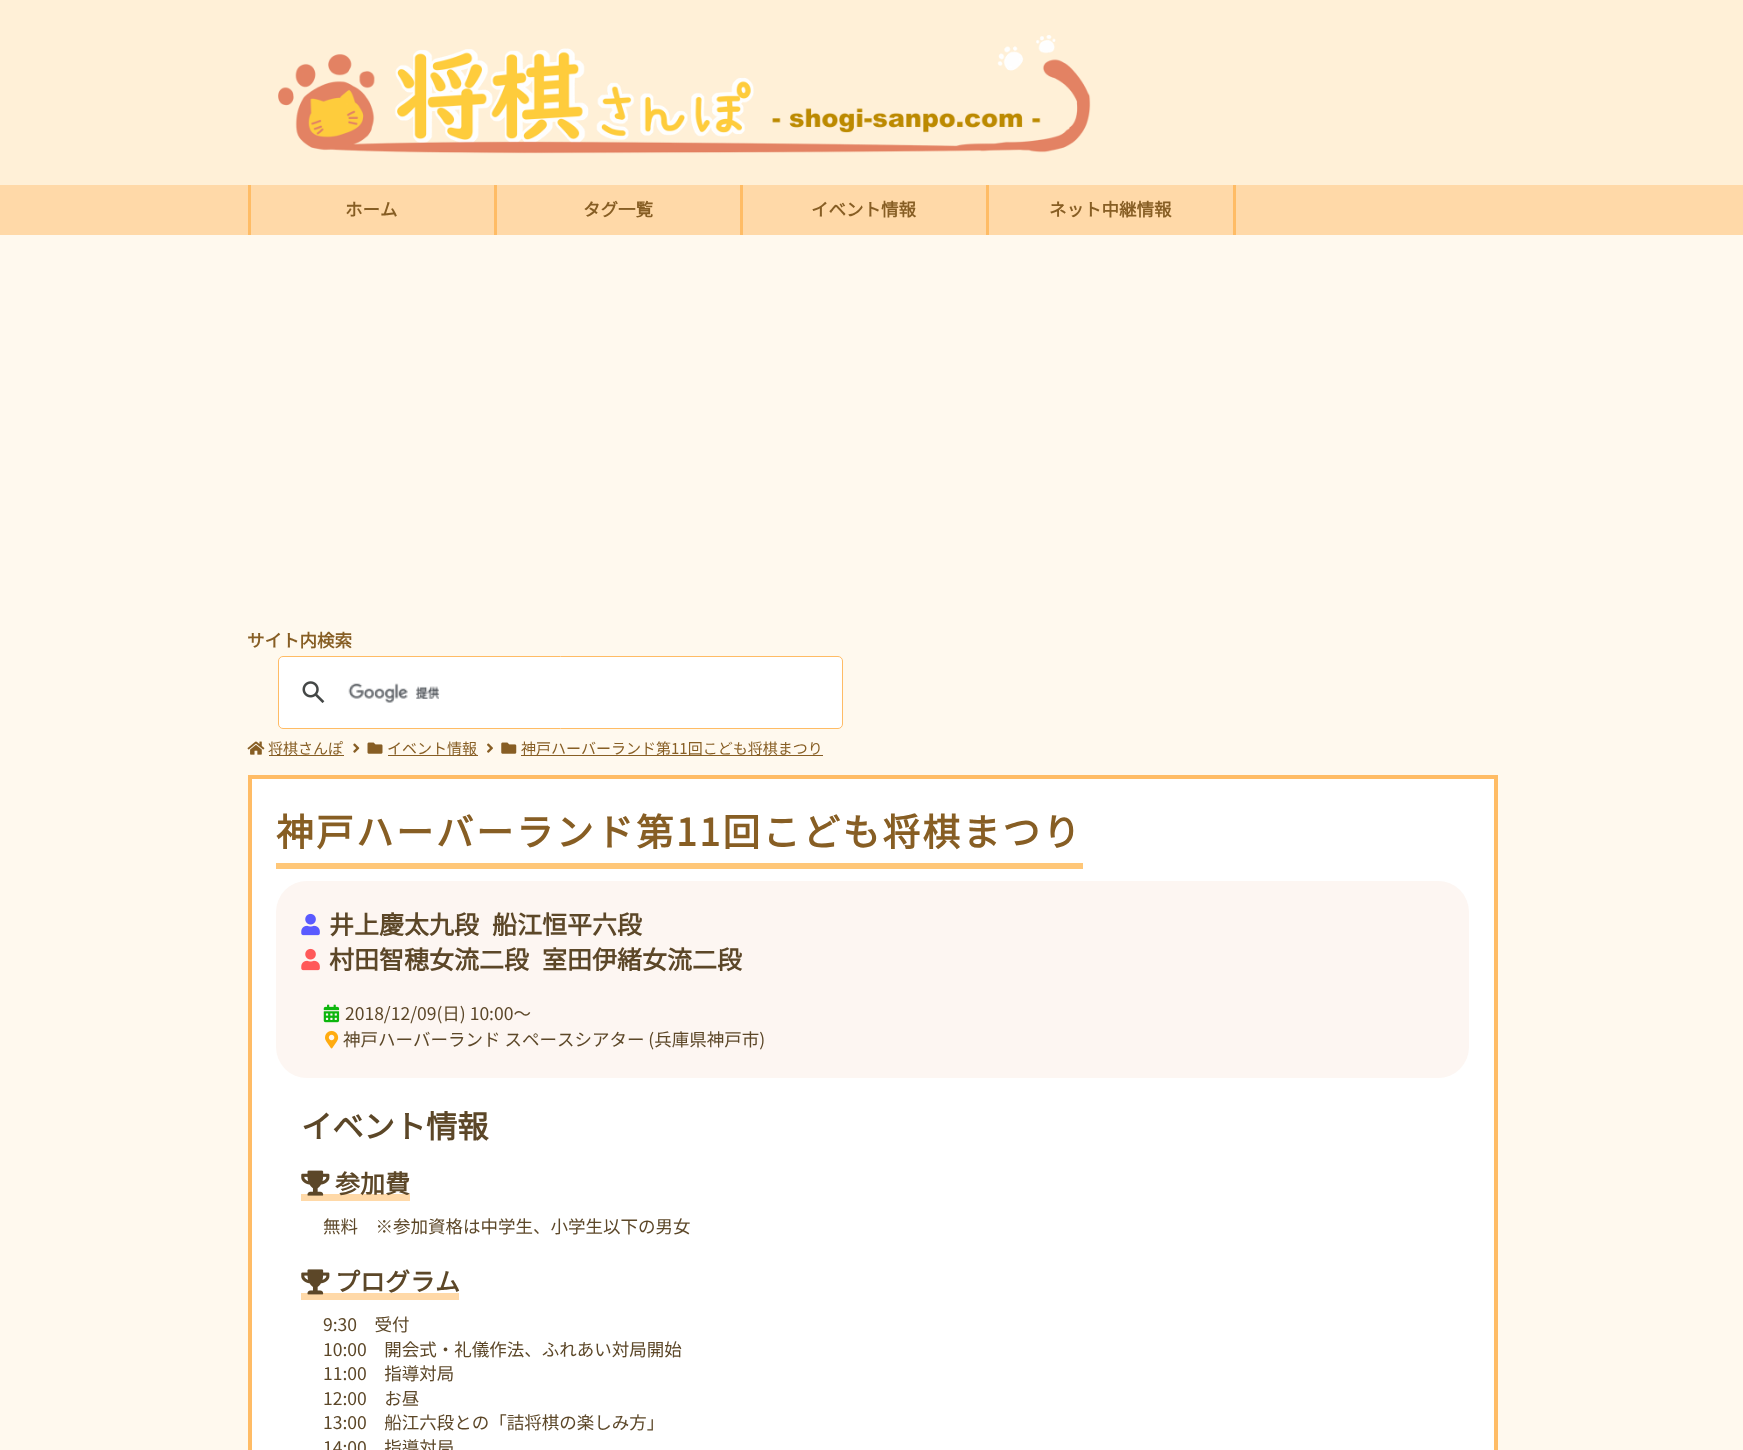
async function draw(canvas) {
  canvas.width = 1743
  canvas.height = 1450
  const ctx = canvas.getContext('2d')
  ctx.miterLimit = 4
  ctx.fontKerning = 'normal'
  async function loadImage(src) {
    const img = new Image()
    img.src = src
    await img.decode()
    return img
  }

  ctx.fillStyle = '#fff0d7'
  ctx.fillRect(0, 0, 1743, 1450)
  ctx.drawImage(await loadImage('image0.png'), 278, 35, 813, 119)
  ctx.fillStyle = '#ffd9a8'
  ctx.fillRect(0, 185, 1743, 50)
  ctx.fillStyle = '#ffbc65'
  ctx.fillRect(494, 185, 3, 50)
  ctx.fillRect(248, 185, 3, 50)
  ctx.font = 'bold 17.5px Noto Sans JP'
  ctx.fillStyle = '#875e24'
  ctx.fillText('ホーム', 345, 216)
  ctx.fillStyle = '#ffbc65'
  ctx.fillRect(740, 185, 3, 50)
  ctx.fillStyle = '#875e24'
  ctx.fillText('タグ一覧', 583, 216)
  ctx.fillStyle = '#ffbc65'
  ctx.fillRect(986, 185, 3, 50)
  ctx.fillStyle = '#875e24'
  ctx.fillText('イベント情報', 811, 216)
  ctx.fillStyle = '#ffbc65'
  ctx.fillRect(1233, 185, 3, 50)
  ctx.fillStyle = '#875e24'
  ctx.fillText('ネット中継情報', 1049, 216)
  ctx.fillStyle = '#fff9ee'
  ctx.fillRect(0, 235, 1743, 1215)
  ctx.fillStyle = '#875e24'
  ctx.fillText('サイト内検索', 247, 647)
  ctx.fillStyle = '#fff'
  ctx.beginPath()
  ctx.roundRect(278.5, 656.5, 564, 72, 4.5)
  ctx.fill()
  ctx.strokeStyle = '#ffbc65'
  ctx.stroke()
  ctx.drawImage(await loadImage('image1.png'), 302, 681, 23, 22)
  ctx.drawImage(await loadImage('image2.png'), 348, 683, 92, 20)
  ctx.drawImage(await loadImage('image3.png'), 247, 741, 18, 14)
  ctx.fillStyle = '#875e24'
  ctx.fillRect(269, 755, 75, 1)
  ctx.font = '100 15px Noto Sans JP'
  ctx.fillText('将棋さんぽ', 268, 754)
  ctx.drawImage(await loadImage('image4.png'), 353, 743, 7, 10)
  ctx.drawImage(await loadImage('image5.png'), 367, 742, 16, 12)
  ctx.fillRect(388, 755, 90, 1)
  ctx.fillText('イベント情報', 387, 754)
  ctx.drawImage(await loadImage('image6.png'), 487, 743, 6, 10)
  ctx.drawImage(await loadImage('image7.png'), 501, 742, 16, 12)
  ctx.fillRect(521, 755, 302, 1)
  ctx.fillText('神戸ハーバーランド第11回こども将棋まつり', 521, 754)
  ctx.fillStyle = '#fff'
  ctx.beginPath()
  ctx.rect(250, 777, 1246, 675)
  ctx.fill()
  ctx.lineWidth = 4
  ctx.stroke()
  ctx.fillStyle = '#ffc778'
  ctx.fillRect(276, 863, 807, 6)
  ctx.letterSpacing = '2.5px'
  ctx.font = 'bold 37.5px Noto Sans JP'
  ctx.fillStyle = '#875e24'
  ctx.fillText('神戸ハーバーランド第11回こども将棋まつり', 276, 846)
  ctx.fillStyle = '#fdf6f2'
  ctx.beginPath()
  ctx.roundRect(276, 881, 1193, 197, 31)
  ctx.fill()
  ctx.drawImage(await loadImage('image8.png'), 301, 913, 19, 23)
  ctx.letterSpacing = '0px'
  ctx.font = 'bold 25px Noto Sans JP'
  ctx.fillStyle = '#5c4728'
  ctx.fillText('井上慶太九段', 329, 934)
  ctx.fillText('船江恒平六段', 492, 934)
  ctx.drawImage(await loadImage('image9.png'), 301, 948, 19, 23)
  ctx.fillText('村田智穂女流二段', 329, 969)
  ctx.fillText('室田伊緒女流二段', 542, 969)
  ctx.drawImage(await loadImage('image10.png'), 323, 1004, 17, 19)
  ctx.font = '100 17.5px Noto Sans JP'
  ctx.fillText('2018/12/09(日) 10:00～', 345, 1020)
  ctx.drawImage(await loadImage('image11.png'), 325, 1030, 14, 19)
  ctx.fillText('神戸ハーバーランド スペースシアター (兵庫県神戸市)', 343, 1046)
  ctx.font = 'bold 31.25px Noto Sans JP'
  ctx.fillText('イベント情報', 301, 1138)
  ctx.fillStyle = '#ffd9a8'
  ctx.fillRect(301, 1194, 109, 7)
  ctx.drawImage(await loadImage('image12.png'), 301, 1170, 29, 26)
  ctx.font = 'bold 25px Noto Sans JP'
  ctx.fillStyle = '#5c4728'
  ctx.fillText('参加費', 335, 1193)
  ctx.font = '100 17.5px Noto Sans JP'
  ctx.fillText('無料　※参加資格は中学生、小学生以下の男女', 323, 1233)
  ctx.fillStyle = '#ffd9a8'
  ctx.fillRect(301, 1293, 158, 7)
  ctx.drawImage(await loadImage('image13.png'), 301, 1269, 29, 26)
  ctx.font = 'bold 25px Noto Sans JP'
  ctx.fillStyle = '#5c4728'
  ctx.fillText('プログラム', 335, 1291)
  ctx.font = '100 17.5px Noto Sans JP'
  ctx.fillText('9:30　受付', 323, 1331)
  ctx.fillText('10:00　開会式・礼儀作法、ふれあい対局開始', 323, 1356)
  ctx.fillText('11:00　指導対局', 323, 1380)
  ctx.fillText('12:00　お昼', 323, 1405)
  ctx.fillText('13:00　船江六段との「詰将棋の楽しみ方」', 323, 1429)
  ctx.fillText('14:00　指導対局', 323, 1454)
}

draw(document.querySelector('canvas'))
